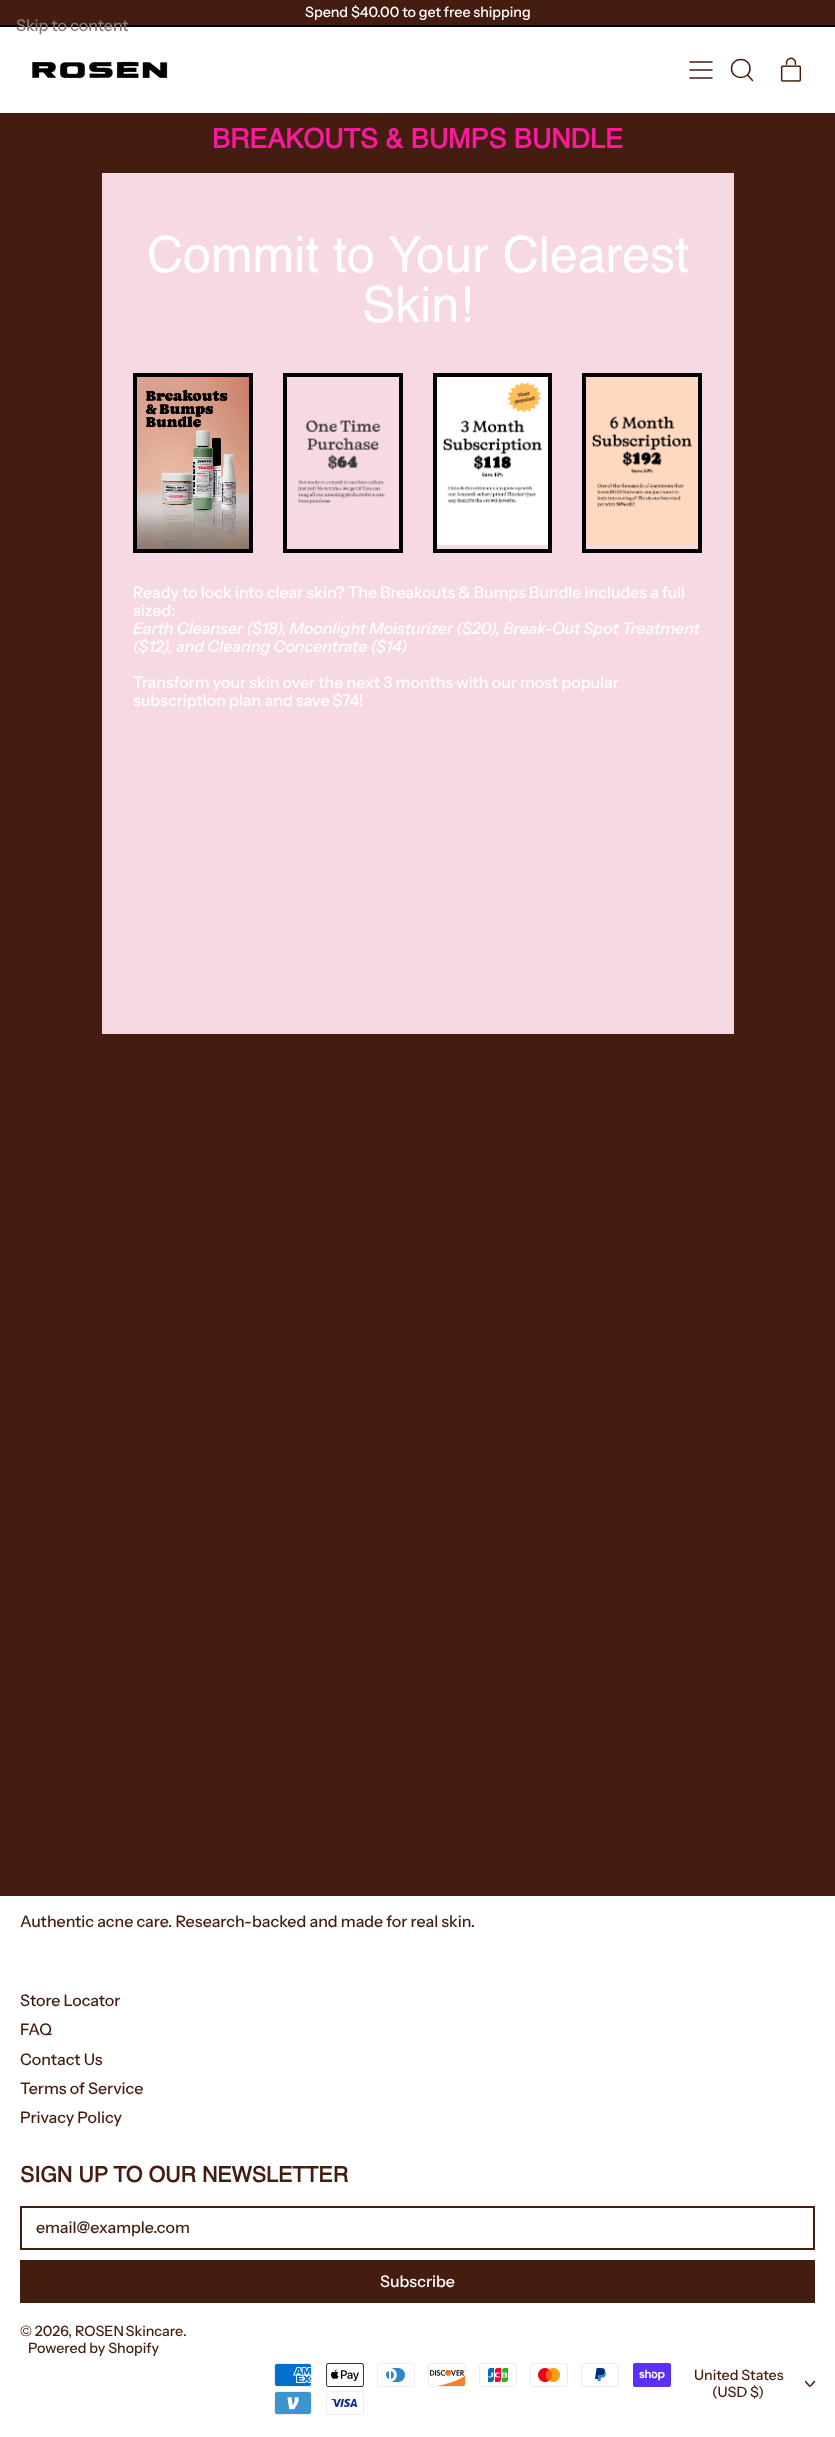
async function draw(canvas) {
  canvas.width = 835
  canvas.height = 2437
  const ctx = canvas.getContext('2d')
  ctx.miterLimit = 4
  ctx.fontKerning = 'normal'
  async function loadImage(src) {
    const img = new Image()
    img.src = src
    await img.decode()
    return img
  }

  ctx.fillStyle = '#451d10'
  ctx.fillRect(0, 0, 835, 2437)
  ctx.fillStyle = '#000'
  ctx.fillRect(0, 25, 835, 2)
  ctx.font = '500 14.25px Instrument Sans'
  ctx.fillStyle = '#fff'
  ctx.fillText('Spend $40.00 to get free shipping', 305, 17)
  ctx.fillRect(0, 27, 835, 86)
  ctx.font = '500 16px Instrument Sans'
  ctx.fillStyle = '#8a7a75'
  ctx.fillText('Skip to content', 16, 31)
  ctx.drawImage(await loadImage('image0.png'), 32, 61, 136, 18)
  ctx.beginPath()
  ctx.moveTo(712, 78)
  ctx.lineTo(690, 78)
  ctx.moveTo(712, 70)
  ctx.lineTo(690, 70)
  ctx.moveTo(712, 62)
  ctx.lineTo(690, 62)
  ctx.strokeStyle = '#451d10'
  ctx.lineWidth = 1.5
  ctx.lineCap = 'round'
  ctx.lineJoin = 'round'
  ctx.stroke()
  ctx.beginPath()
  ctx.moveTo(731.5, 68.5)
  ctx.bezierCurveTo(731.5, 80.5, 750, 80.5, 750, 68.5)
  ctx.bezierCurveTo(750, 56.5, 731.5, 56.5, 731.5, 68.5)
  ctx.closePath()
  ctx.moveTo(752.5, 80.5)
  ctx.lineTo(747.5, 75)
  ctx.stroke()
  ctx.drawImage(await loadImage('image1.png'), 780, 57, 22, 25)
  ctx.font = 'bold 26.9px Helvetica'
  ctx.fillStyle = '#fa1b9d'
  ctx.fillText('BREAKOUTS & BUMPS BUNDLE', 212, 148)
  ctx.fillStyle = '#f7d9e3'
  ctx.fillRect(102, 173, 632, 861)
  ctx.font = '50px Helvetica'
  ctx.fillStyle = '#fff'
  ctx.fillText('Commit to Your Clearest', 147, 272)
  ctx.fillText('Skin!', 362, 322)
  ctx.strokeStyle = '#000'
  ctx.lineWidth = 4
  ctx.lineJoin = 'miter'
  ctx.strokeRect(135, 375, 116, 176)
  ctx.drawImage(await loadImage('image2.png'), 137, 377, 112, 172)
  ctx.strokeRect(285, 375, 116, 176)
  ctx.drawImage(await loadImage('image3.png'), 297, 419, 89, 86)
  ctx.strokeRect(435, 375, 115, 176)
  ctx.drawImage(await loadImage('image4.png'), 437, 377, 111, 168)
  ctx.strokeRect(584, 375, 116, 176)
  ctx.drawImage(await loadImage('image5.png'), 586, 377, 112, 168)
  ctx.font = '500 16px Instrument Sans'
  ctx.fillText('Ready to lock into clear skin? The Breakouts & Bumps Bundle includes a full', 133, 598)
  ctx.fillText('sized:', 133, 616)
  ctx.font = 'italic 500 16px Instrument Sans'
  ctx.fillText('Earth Cleanser ($18), Moonlight Moisturizer ($20), Break-Out Spot Treatment', 133, 634)
  ctx.fillText('($12), and Clearing Concentrate ($14)', 133, 652)
  ctx.font = '500 16px Instrument Sans'
  ctx.fillText('Transform your skin over the next 3 months with our most popular', 133, 688)
  ctx.fillText('subscription plan and save $74!', 133, 706)
  ctx.fillRect(0, 1896, 835, 541)
  ctx.fillStyle = '#451d10'
  ctx.fillText('Authentic acne care. Research-backed and made for real skin.', 20, 1927)
  ctx.fillText('Store Locator', 20, 2006)
  ctx.fillText('FAQ', 20, 2035)
  ctx.fillText('Contact Us', 20, 2065)
  ctx.fillText('Terms of Service', 20, 2094)
  ctx.fillText('Privacy Policy', 20, 2123)
  ctx.font = 'bold 21.4px Helvetica'
  ctx.fillText('SIGN UP TO OUR NEWSLETTER', 20, 2182)
  ctx.strokeStyle = '#451d10'
  ctx.lineWidth = 2
  ctx.strokeRect(21, 2207, 793, 42)
  ctx.font = '500 16px Instrument Sans'
  ctx.fillText('email@example.com', 36, 2233)
  ctx.fillRect(20, 2260, 795, 43)
  ctx.fillStyle = '#fff'
  ctx.fillText('Subscribe', 380, 2287)
  ctx.font = '500 14.25px Instrument Sans'
  ctx.fillStyle = '#451d10'
  ctx.fillText('© 2026,', 20, 2336)
  ctx.wordSpacing = '-1px'
  ctx.fillText('ROSEN Skincare', 75, 2336)
  ctx.wordSpacing = '0px'
  ctx.fillText('.', 183, 2336)
  ctx.fillText('Powered by Shopify', 28, 2353)
  ctx.drawImage(await loadImage('image6.png'), 274, 2363, 38, 24)
  ctx.drawImage(await loadImage('image7.png'), 326, 2363, 38, 24)
  ctx.drawImage(await loadImage('image8.png'), 377, 2363, 38, 24)
  ctx.drawImage(await loadImage('image9.png'), 428, 2363, 38, 24)
  ctx.drawImage(await loadImage('image10.png'), 479, 2363, 38, 24)
  ctx.drawImage(await loadImage('image11.png'), 530, 2363, 38, 24)
  ctx.drawImage(await loadImage('image12.png'), 581, 2363, 38, 24)
  ctx.drawImage(await loadImage('image13.png'), 633, 2363, 38, 24)
  ctx.drawImage(await loadImage('image14.png'), 274, 2391, 38, 24)
  ctx.drawImage(await loadImage('image15.png'), 326, 2391, 38, 24)
  ctx.fillText('United States', 694, 2380)
  ctx.fillText('(USD $)', 712, 2397)
  ctx.beginPath()
  ctx.moveTo(805.5, 2381.5)
  ctx.lineTo(809, 2385.5)
  ctx.bezierCurveTo(810, 2386.5, 809.5, 2386.5, 811, 2385.5)
  ctx.lineTo(814.5, 2381.5)
  ctx.lineWidth = 1.5
  ctx.lineJoin = 'round'
  ctx.stroke()
}

draw(document.querySelector('canvas'))
